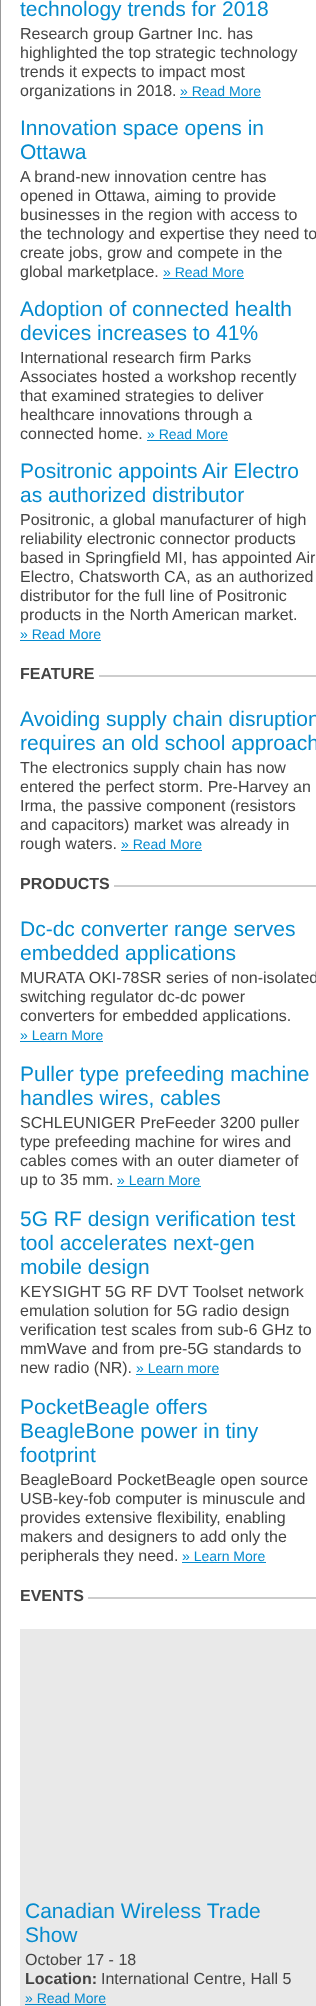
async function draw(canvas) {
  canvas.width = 316
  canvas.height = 2006
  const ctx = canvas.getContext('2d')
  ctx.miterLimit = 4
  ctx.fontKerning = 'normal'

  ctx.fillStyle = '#fff'
  ctx.fillRect(0, 0, 316, 2006)
  ctx.strokeStyle = '#999'
  ctx.strokeRect(0.5, -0.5, 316, 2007)
  ctx.font = '21px Liberation Sans'
  ctx.fillStyle = '#058bce'
  ctx.fillText('technology trends for 2018', 20, 16)
  ctx.font = '16px Liberation Sans'
  ctx.fillStyle = '#444'
  ctx.fillText('Research group Gartner Inc. has', 20, 39)
  ctx.fillText('highlighted the top strategic technology', 20, 58)
  ctx.fillText('trends it expects to impact most', 20, 77)
  ctx.fillText('organizations in 2018.', 20, 96)
  ctx.font = '14px Liberation Sans'
  ctx.fillStyle = '#058bce'
  ctx.fillText('» Read More', 180, 96)
  ctx.fillRect(180, 97, 81, 1)
  ctx.font = '21px Liberation Sans'
  ctx.fillText('Innovation space opens in', 20, 135)
  ctx.fillText('Ottawa', 20, 159)
  ctx.font = '16px Liberation Sans'
  ctx.fillStyle = '#444'
  ctx.fillText('A brand-new innovation centre has', 20, 182)
  ctx.fillText('opened in Ottawa, aiming to provide', 20, 201)
  ctx.fillText('businesses in the region with access to', 20, 220)
  ctx.fillText('the technology and expertise they need to', 20, 239)
  ctx.fillText('create jobs, grow and compete in the', 20, 258)
  ctx.fillText('global marketplace.', 20, 277)
  ctx.font = '14px Liberation Sans'
  ctx.fillStyle = '#058bce'
  ctx.fillText('» Read More', 163, 277)
  ctx.fillRect(163, 278, 81, 1)
  ctx.font = '21px Liberation Sans'
  ctx.fillText('Adoption of connected health', 20, 316)
  ctx.fillText('devices increases to 41%', 20, 340)
  ctx.font = '16px Liberation Sans'
  ctx.fillStyle = '#444'
  ctx.fillText('International research firm Parks', 20, 363)
  ctx.fillText('Associates hosted a workshop recently', 20, 382)
  ctx.fillText('that examined strategies to deliver', 20, 401)
  ctx.fillText('healthcare innovations through a', 20, 420)
  ctx.fillText('connected home.', 20, 439)
  ctx.font = '14px Liberation Sans'
  ctx.fillStyle = '#058bce'
  ctx.fillText('» Read More', 147, 439)
  ctx.fillRect(147, 440, 81, 1)
  ctx.font = '21px Liberation Sans'
  ctx.fillText('Positronic appoints Air Electro', 20, 478)
  ctx.fillText('as authorized distributor', 20, 502)
  ctx.font = '16px Liberation Sans'
  ctx.fillStyle = '#444'
  ctx.fillText('Positronic, a global manufacturer of high', 20, 525)
  ctx.fillText('reliability electronic connector products', 20, 544)
  ctx.fillText('based in Springfield MI, has appointed Air', 20, 563)
  ctx.fillText('Electro, Chatsworth CA, as an authorized', 20, 582)
  ctx.fillText('distributor for the full line of Positronic', 20, 601)
  ctx.fillText('products in the North American market.', 20, 620)
  ctx.font = '14px Liberation Sans'
  ctx.fillStyle = '#058bce'
  ctx.fillText('» Read More', 20, 639)
  ctx.fillRect(20, 640, 81, 1)
  ctx.font = 'bold 16px Liberation Sans'
  ctx.fillStyle = '#444'
  ctx.fillText('FEATURE', 20, 679)
  ctx.fillStyle = '#cdcdcd'
  ctx.fillRect(99, 675, 217, 2)
  ctx.font = '21px Liberation Sans'
  ctx.fillStyle = '#058bce'
  ctx.fillText('Avoiding supply chain disruption', 20, 726)
  ctx.fillText('requires an old school approach', 20, 750)
  ctx.font = '16px Liberation Sans'
  ctx.fillStyle = '#444'
  ctx.fillText('The electronics supply chain has now', 20, 773)
  ctx.fillText('entered the perfect storm. Pre-Harvey an', 20, 792)
  ctx.fillText('Irma, the passive component (resistors', 20, 811)
  ctx.fillText('and capacitors) market was already in', 20, 830)
  ctx.fillText('rough waters.', 20, 849)
  ctx.font = '14px Liberation Sans'
  ctx.fillStyle = '#058bce'
  ctx.fillText('» Read More', 121, 849)
  ctx.fillRect(121, 850, 81, 1)
  ctx.font = 'bold 16px Liberation Sans'
  ctx.fillStyle = '#444'
  ctx.fillText('PRODUCTS', 20, 889)
  ctx.fillStyle = '#cdcdcd'
  ctx.fillRect(114, 885, 202, 2)
  ctx.font = '21px Liberation Sans'
  ctx.fillStyle = '#058bce'
  ctx.fillText('Dc-dc converter range serves', 20, 936)
  ctx.fillText('embedded applications', 20, 960)
  ctx.font = '16px Liberation Sans'
  ctx.fillStyle = '#444'
  ctx.fillText('MURATA OKI-78SR series of non-isolated', 20, 983)
  ctx.fillText('switching regulator dc-dc power', 20, 1002)
  ctx.fillText('converters for embedded applications.', 20, 1021)
  ctx.font = '14px Liberation Sans'
  ctx.fillStyle = '#058bce'
  ctx.fillText('» Learn More', 20, 1040)
  ctx.fillRect(20, 1041, 83, 1)
  ctx.font = '21px Liberation Sans'
  ctx.fillText('Puller type prefeeding machine', 20, 1081)
  ctx.fillText('handles wires, cables', 20, 1105)
  ctx.font = '16px Liberation Sans'
  ctx.fillStyle = '#444'
  ctx.fillText('SCHLEUNIGER PreFeeder 3200 puller', 20, 1128)
  ctx.fillText('type prefeeding machine for wires and', 20, 1147)
  ctx.fillText('cables comes with an outer diameter of', 20, 1166)
  ctx.fillText('up to 35 mm.', 20, 1185)
  ctx.font = '14px Liberation Sans'
  ctx.fillStyle = '#058bce'
  ctx.fillText('» Learn More', 117, 1185)
  ctx.fillRect(117, 1186, 84, 1)
  ctx.font = '21px Liberation Sans'
  ctx.fillText('5G RF design verification test', 20, 1226)
  ctx.fillText('tool accelerates next-gen', 20, 1250)
  ctx.fillText('mobile design', 20, 1274)
  ctx.font = '16px Liberation Sans'
  ctx.fillStyle = '#444'
  ctx.fillText('KEYSIGHT 5G RF DVT Toolset network', 20, 1297)
  ctx.fillText('emulation solution for 5G radio design', 20, 1316)
  ctx.fillText('verification test scales from sub-6 GHz to', 20, 1335)
  ctx.fillText('mmWave and from pre-5G standards to', 20, 1354)
  ctx.fillText('new radio (NR).', 20, 1373)
  ctx.font = '14px Liberation Sans'
  ctx.fillStyle = '#058bce'
  ctx.fillText('» Learn more', 136, 1373)
  ctx.fillRect(136, 1374, 83, 1)
  ctx.font = '21px Liberation Sans'
  ctx.fillText('PocketBeagle offers', 20, 1414)
  ctx.fillText('BeagleBone power in tiny', 20, 1438)
  ctx.fillText('footprint', 20, 1462)
  ctx.font = '16px Liberation Sans'
  ctx.fillStyle = '#444'
  ctx.fillText('BeagleBoard PocketBeagle open source', 20, 1485)
  ctx.fillText('USB-key-fob computer is minuscule and', 20, 1504)
  ctx.fillText('provides extensive flexibility, enabling', 20, 1523)
  ctx.fillText('makers and designers to add only the', 20, 1542)
  ctx.fillText('peripherals they need.', 20, 1561)
  ctx.font = '14px Liberation Sans'
  ctx.fillStyle = '#058bce'
  ctx.fillText('» Learn More', 182, 1561)
  ctx.fillRect(182, 1562, 84, 1)
  ctx.font = 'bold 16px Liberation Sans'
  ctx.fillStyle = '#444'
  ctx.fillText('EVENTS', 20, 1601)
  ctx.fillStyle = '#cdcdcd'
  ctx.fillRect(88, 1597, 228, 2)
  ctx.fillStyle = '#e9e9e9'
  ctx.fillRect(20, 1629, 296, 377)
  ctx.font = '21px Liberation Sans'
  ctx.fillStyle = '#058bce'
  ctx.fillText('Canadian Wireless Trade', 25, 1918)
  ctx.fillText('Show', 25, 1942)
  ctx.font = '16px Liberation Sans'
  ctx.fillStyle = '#444'
  ctx.fillText('October 17 - 18', 25, 1965)
  ctx.font = 'bold 16px Liberation Sans'
  ctx.fillText('Location:', 25, 1984)
  ctx.font = '16px Liberation Sans'
  ctx.fillText('International Centre, Hall 5', 101, 1984)
  ctx.font = '14px Liberation Sans'
  ctx.fillStyle = '#058bce'
  ctx.fillText('» Read More', 25, 2003)
  ctx.fillRect(25, 2004, 81, 1)
}

draw(document.querySelector('canvas'))
